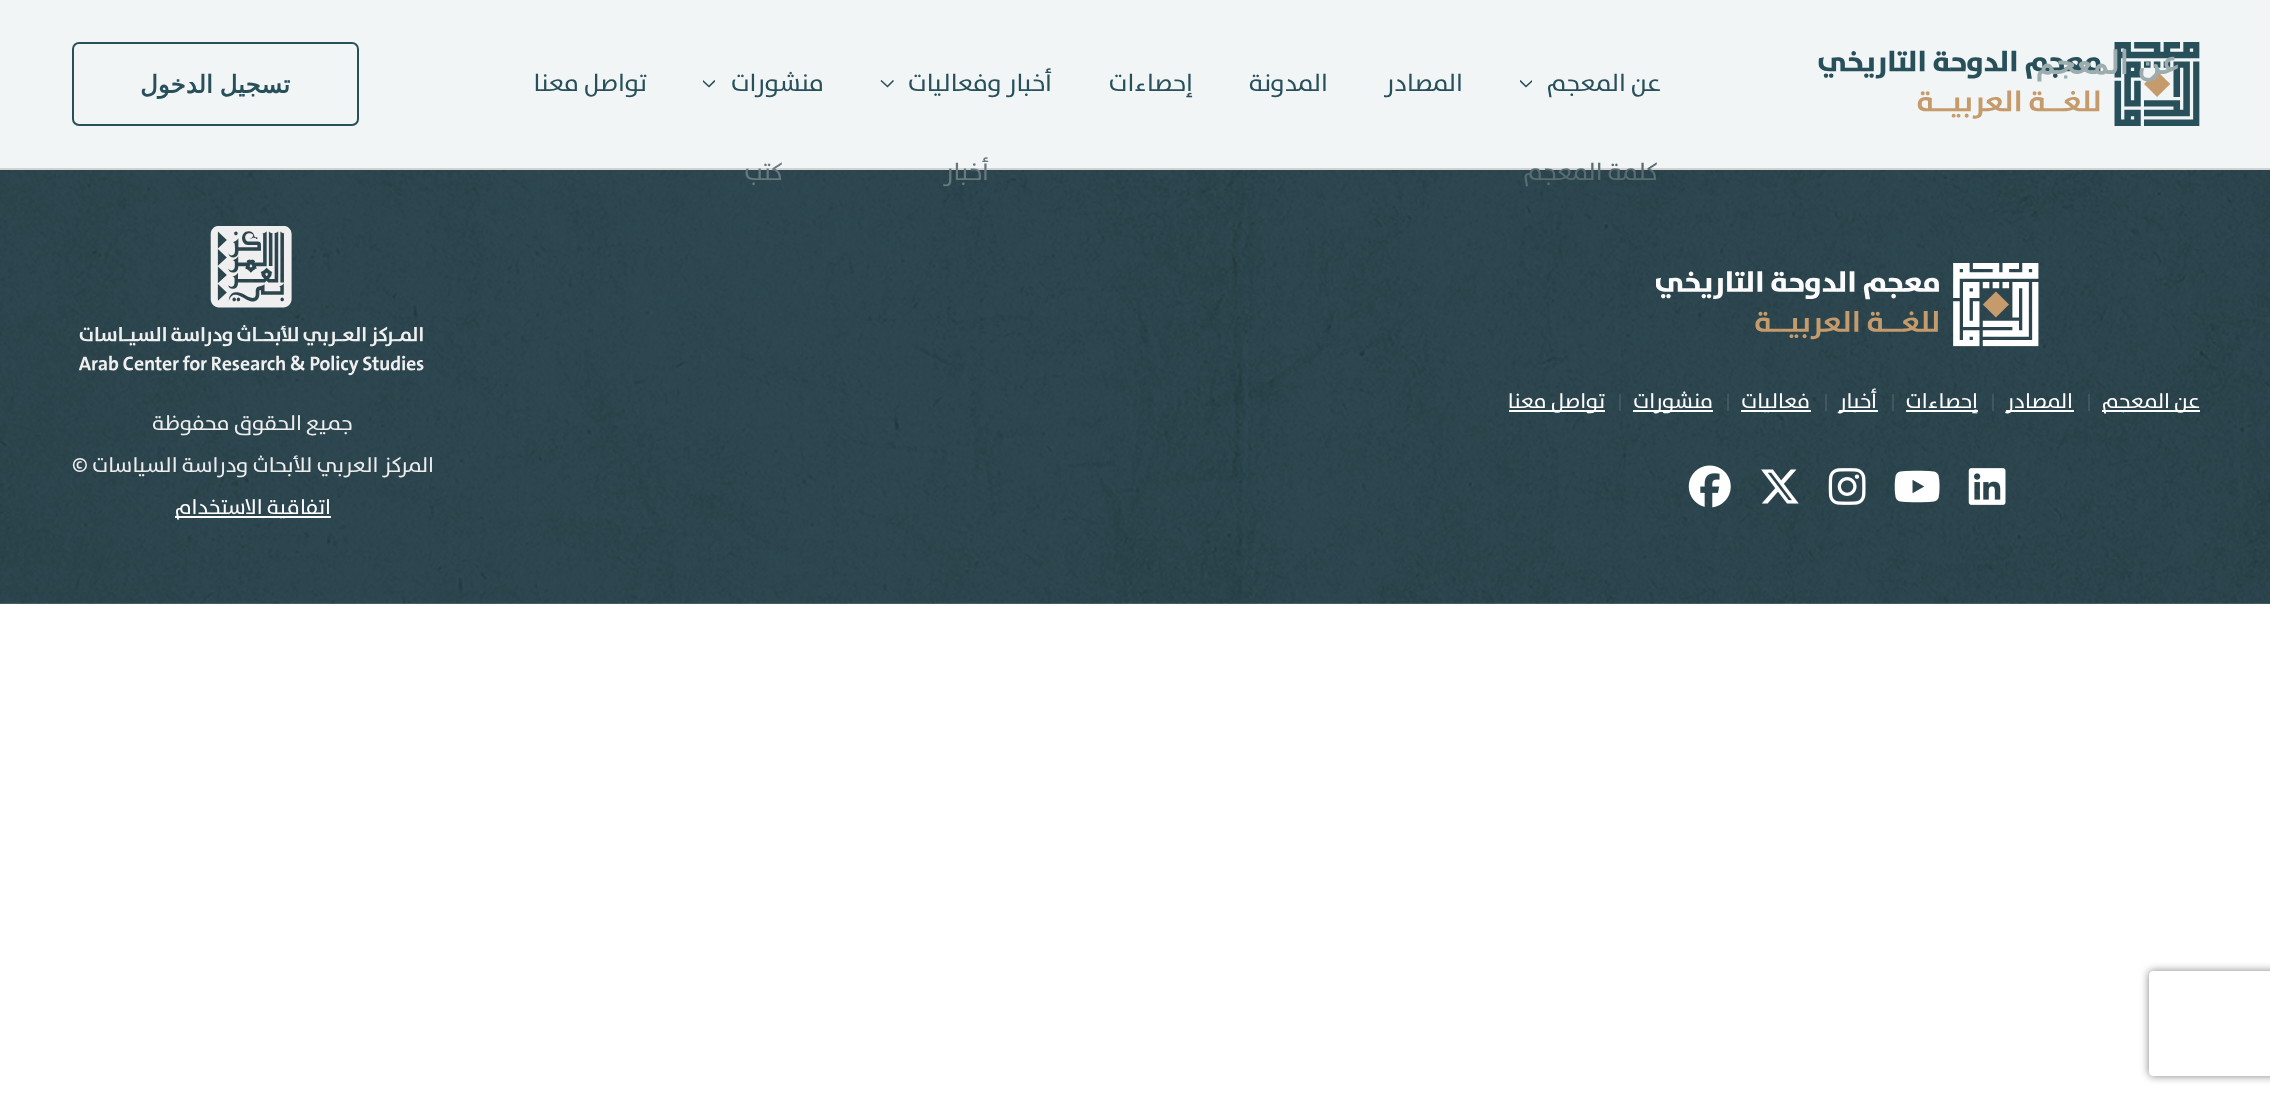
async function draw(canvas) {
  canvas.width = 2270
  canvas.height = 1100
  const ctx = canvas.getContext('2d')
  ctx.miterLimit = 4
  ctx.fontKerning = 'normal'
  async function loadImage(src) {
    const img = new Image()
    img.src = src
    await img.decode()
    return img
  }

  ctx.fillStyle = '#fff'
  ctx.fillRect(0, 0, 2270, 1100)
  ctx.fillStyle = '#f2f5f5'
  ctx.fillRect(0, 0, 2270, 168)
  ctx.drawImage(await loadImage('image0.png'), 1818, 42, 382, 84)
  ctx.wordSpacing = '-1px'
  ctx.direction = 'rtl'
  ctx.font = 'bold 31.5px DejaVu Sans'
  ctx.fillStyle = '#9dadaf'
  ctx.fillText('عن المعجم', 2180, 74)
  ctx.fillStyle = '#d2d2d2'
  ctx.fillRect(0, 168, 2270, 2)
  ctx.wordSpacing = '0px'
  ctx.font = '500 24.5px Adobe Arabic'
  ctx.fillStyle = '#27505b'
  ctx.fillText('عن المعجم', 1661, 91)
  ctx.save()
  ctx.beginPath()
  ctx.rect(1520, 79, 12, 9)
  ctx.clip()
  ctx.beginPath()
  ctx.moveTo(1520, 80.5)
  ctx.lineTo(1526, 86.5)
  ctx.lineTo(1532.5, 80.5)
  ctx.strokeStyle = '#27505b'
  ctx.lineWidth = 1.6
  ctx.stroke()
  ctx.restore()
  ctx.drawImage(await loadImage('image1.png'), 0, 170, 2270, 434)
  ctx.fillStyle = '#596c72'
  ctx.fillText('كلمة المعجم', 1658, 180)
  ctx.fillStyle = '#27505b'
  ctx.fillText('المصادر', 1463, 91)
  ctx.fillText('المدونة', 1328, 91)
  ctx.fillText('إحصاءات', 1193, 91)
  ctx.fillText('أخبار وفعاليات', 1052, 91)
  ctx.beginPath()
  ctx.moveTo(881, 80.5)
  ctx.lineTo(887.5, 86.5)
  ctx.lineTo(893.5, 80.5)
  ctx.strokeStyle = '#27505b'
  ctx.lineWidth = 1.6
  ctx.stroke()
  ctx.fillStyle = '#67787e'
  ctx.fillText('أخبار', 989, 180)
  ctx.fillStyle = '#27505b'
  ctx.fillText('منشورات', 824, 91)
  ctx.save()
  ctx.beginPath()
  ctx.rect(703, 79, 12, 9)
  ctx.clip()
  ctx.beginPath()
  ctx.moveTo(702.5, 80.5)
  ctx.lineTo(709, 86.5)
  ctx.lineTo(715, 80.5)
  ctx.stroke()
  ctx.restore()
  ctx.fillStyle = '#67787e'
  ctx.fillText('كتب', 783, 180)
  ctx.fillStyle = '#27505b'
  ctx.fillText('تواصل معنا', 647, 91)
  ctx.beginPath()
  ctx.roundRect(73, 43, 285, 82, 6)
  ctx.lineWidth = 2
  ctx.stroke()
  ctx.wordSpacing = '-1px'
  ctx.font = 'bold 24.5px DejaVu Sans'
  ctx.fillText('تسجيل الدخول', 290, 93)
  ctx.drawImage(await loadImage('image2.png'), 1656, 263, 383, 84)
  ctx.fillStyle = '#fff'
  ctx.fillRect(2102, 410, 98, 2)
  ctx.wordSpacing = '0px'
  ctx.font = '500 21px Adobe Arabic'
  ctx.fillText('عن المعجم', 2200, 408)
  ctx.fillStyle = '#ffffff1a'
  ctx.fillRect(2088, 394, 2, 17)
  ctx.fillStyle = '#fff'
  ctx.fillRect(2006, 410, 68, 2)
  ctx.fillText('المصادر', 2073, 408)
  ctx.fillStyle = '#ffffff1a'
  ctx.fillRect(1992, 394, 2, 17)
  ctx.fillStyle = '#fff'
  ctx.fillRect(1906, 410, 72, 2)
  ctx.fillText('إحصاءات', 1978, 408)
  ctx.fillStyle = '#ffffff1a'
  ctx.fillRect(1892, 394, 2, 17)
  ctx.fillStyle = '#fff'
  ctx.fillRect(1839, 410, 39, 2)
  ctx.fillText('أخبار', 1877, 408)
  ctx.fillStyle = '#ffffff1a'
  ctx.fillRect(1825, 394, 2, 17)
  ctx.fillStyle = '#fff'
  ctx.fillRect(1741, 410, 70, 2)
  ctx.fillText('فعاليات', 1810, 408)
  ctx.fillStyle = '#ffffff1a'
  ctx.fillRect(1727, 394, 2, 17)
  ctx.fillStyle = '#fff'
  ctx.fillRect(1633, 410, 80, 2)
  ctx.fillText('منشورات', 1713, 408)
  ctx.fillStyle = '#ffffff1a'
  ctx.fillRect(1619, 394, 2, 17)
  ctx.fillStyle = '#fff'
  ctx.fillRect(1509, 410, 96, 2)
  ctx.fillText('تواصل معنا', 1605, 408)
  ctx.drawImage(await loadImage('image3.png'), 1968, 468, 38, 37)
  ctx.drawImage(await loadImage('image4.png'), 1894, 470, 46, 33)
  ctx.drawImage(await loadImage('image5.png'), 1828, 468, 38, 37)
  ctx.drawImage(await loadImage('image6.png'), 1761, 469, 38, 35)
  ctx.drawImage(await loadImage('image7.png'), 1688, 465, 43, 43)
  ctx.drawImage(await loadImage('image8.png'), 79, 226, 345, 150)
  ctx.fillStyle = '#ededed'
  ctx.fillText('جميع الحقوق محفوظة', 353, 430)
  ctx.fillText('المركز العربي للأبحاث ودراسة السياسات ©', 434, 472)
  ctx.fillStyle = '#fff'
  ctx.fillRect(175, 516, 156, 2)
  ctx.fillText('اتفاقية الاستخدام', 331, 514)
  ctx.save()
  ctx.beginPath()
  ctx.moveTo(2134, 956)
  ctx.lineTo(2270, 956)
  ctx.lineTo(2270, 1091)
  ctx.lineTo(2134, 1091)
  ctx.closePath()
  ctx.moveTo(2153, 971)
  ctx.lineTo(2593, 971)
  ctx.bezierCurveTo(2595, 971, 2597, 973, 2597, 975)
  ctx.lineTo(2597, 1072)
  ctx.bezierCurveTo(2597, 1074, 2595, 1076, 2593, 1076)
  ctx.lineTo(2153, 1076)
  ctx.bezierCurveTo(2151, 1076, 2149, 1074, 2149, 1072)
  ctx.lineTo(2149, 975)
  ctx.bezierCurveTo(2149, 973, 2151, 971, 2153, 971)
  ctx.closePath()
  ctx.clip('evenodd')
  ctx.fillStyle = '#808080'
  ctx.filter = 'blur(4.5px)'
  ctx.beginPath()
  ctx.roundRect(2149, 971, 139, 105, 4)
  ctx.fill()
  ctx.filter = 'none'
  ctx.restore()
}

draw(document.querySelector('canvas'))
